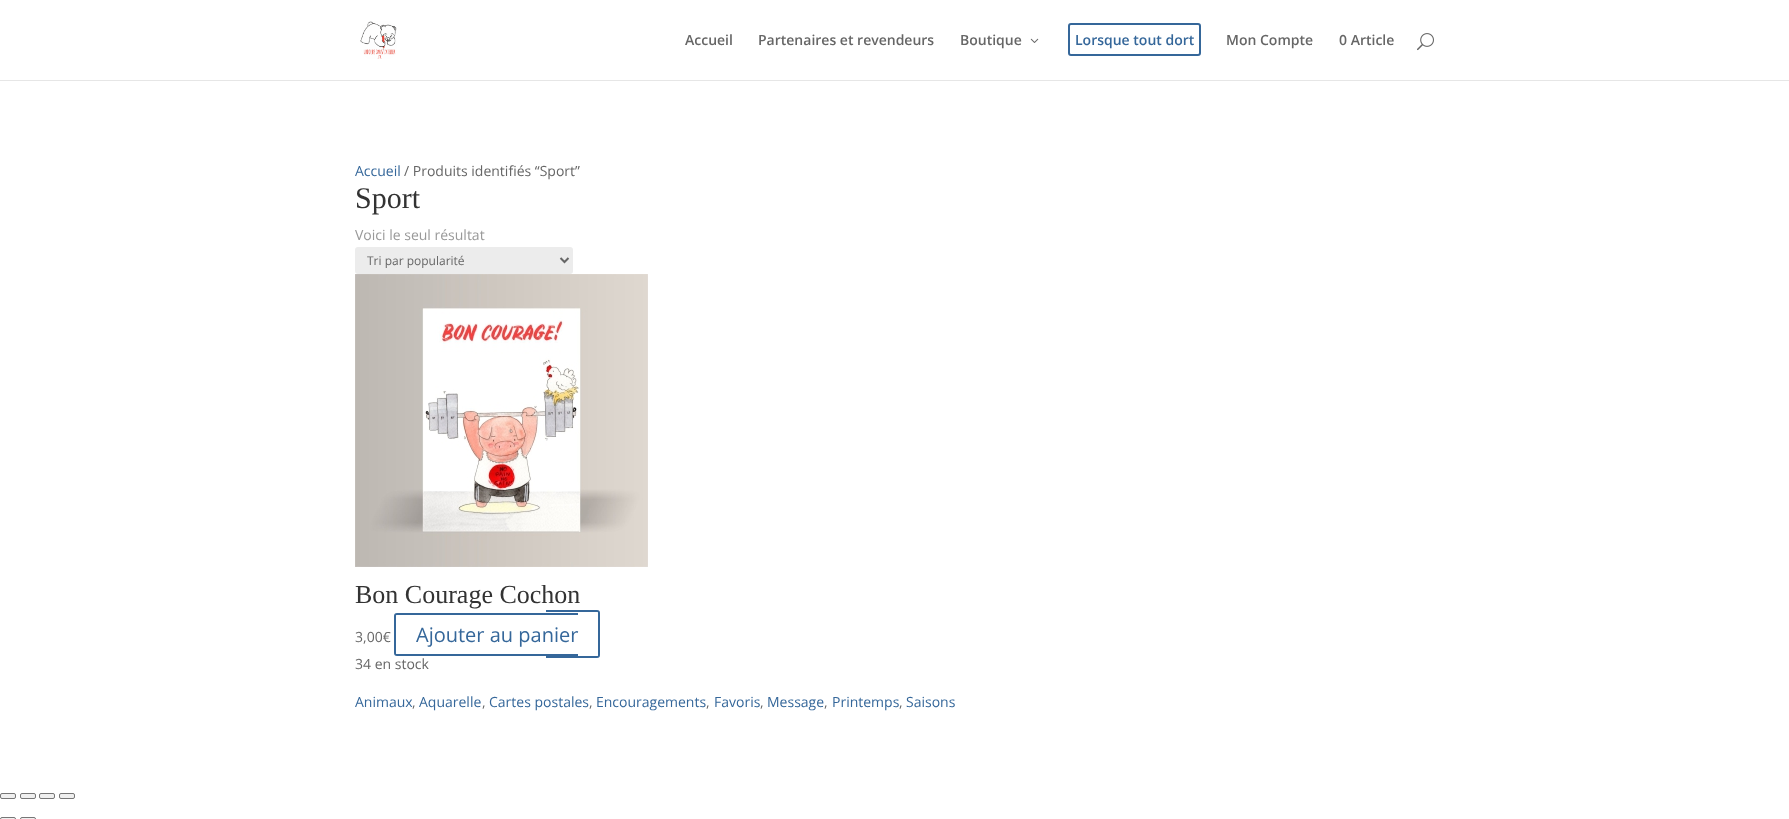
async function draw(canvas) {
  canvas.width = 1789
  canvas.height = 819
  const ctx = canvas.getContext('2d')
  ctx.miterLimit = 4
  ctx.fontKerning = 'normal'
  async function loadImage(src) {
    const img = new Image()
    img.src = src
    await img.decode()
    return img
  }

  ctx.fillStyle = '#fff'
  ctx.fillRect(0, 0, 1789, 819)
  ctx.fillStyle = '#e6e6e6'
  ctx.fillRect(0, 80, 1789, 1)
  ctx.drawImage(await loadImage('image0.png'), 360, 21, 37, 38)
  ctx.font = '600 14px Open Sans'
  ctx.fillStyle = '#666'
  ctx.fillText('Accueil', 685, 45)
  ctx.fillText('Partenaires et revendeurs', 758, 45)
  ctx.fillText('Boutique', 960, 45)
  ctx.drawImage(await loadImage('image1.png'), 1030, 38, 9, 5)
  ctx.beginPath()
  ctx.roundRect(1069, 24, 131, 31, 2)
  ctx.strokeStyle = '#35679a'
  ctx.lineWidth = 2
  ctx.stroke()
  ctx.fillStyle = '#35679a'
  ctx.fillText('Lorsque tout dort', 1075, 45)
  ctx.fillStyle = '#666'
  ctx.fillText('Mon Compte', 1226, 45)
  ctx.fillText('0 Article', 1339, 45)
  ctx.drawImage(await loadImage('image2.png'), 1417, 33, 17, 18)
  ctx.font = '14px Open Sans'
  ctx.fillStyle = '#35679a'
  ctx.fillText('Accueil', 355, 176)
  ctx.fillStyle = '#666'
  ctx.fillText('/ Produits identifiés “Sport”', 404, 176)
  ctx.font = '30px Liberation Serif'
  ctx.fillStyle = '#333'
  ctx.fillText('Sport', 355, 208)
  ctx.font = '14px Open Sans'
  ctx.fillStyle = '#999'
  ctx.fillText('Voici le seul résultat', 355, 240)
  ctx.fillStyle = '#ececec'
  ctx.beginPath()
  ctx.roundRect(355, 247, 218, 27, 3)
  ctx.fill()
  ctx.beginPath()
  ctx.moveTo(560.5, 258)
  ctx.lineTo(564.5, 262)
  ctx.lineTo(568.5, 258)
  ctx.strokeStyle = '#666'
  ctx.stroke()
  ctx.font = '12px Open Sans'
  ctx.fillStyle = '#666'
  ctx.fillText('Tri par popularité', 367, 265)
  ctx.drawImage(await loadImage('image3.png'), 355, 274, 293, 293)
  ctx.font = '26px Liberation Serif'
  ctx.fillStyle = '#333'
  ctx.fillText('Bon Courage Cochon', 355, 603)
  ctx.font = '14px Open Sans'
  ctx.fillStyle = '#666'
  ctx.fillText('3,00€', 355, 642)
  ctx.fillStyle = '#35679a'
  ctx.beginPath()
  ctx.moveTo(397, 613)
  ctx.lineTo(578, 613)
  ctx.lineTo(578, 656)
  ctx.lineTo(397, 656)
  ctx.bezierCurveTo(395, 656, 394, 655, 394, 653)
  ctx.lineTo(394, 616)
  ctx.bezierCurveTo(394, 614, 395, 613, 397, 613)
  ctx.closePath()
  ctx.moveTo(397, 615)
  ctx.lineTo(578, 615)
  ctx.lineTo(578, 654)
  ctx.lineTo(397, 654)
  ctx.bezierCurveTo(396, 654, 396, 654, 396, 653)
  ctx.lineTo(396, 616)
  ctx.bezierCurveTo(396, 615, 396, 615, 397, 615)
  ctx.closePath()
  ctx.fill('evenodd')
  ctx.beginPath()
  ctx.moveTo(546, 610)
  ctx.lineTo(597, 610)
  ctx.bezierCurveTo(599, 610, 600, 611, 600, 613)
  ctx.lineTo(600, 655)
  ctx.bezierCurveTo(600, 657, 599, 658, 597, 658)
  ctx.lineTo(546, 658)
  ctx.closePath()
  ctx.moveTo(546, 612)
  ctx.lineTo(597, 612)
  ctx.bezierCurveTo(598, 612, 598, 612, 598, 613)
  ctx.lineTo(598, 655)
  ctx.bezierCurveTo(598, 656, 598, 656, 597, 656)
  ctx.lineTo(546, 656)
  ctx.closePath()
  ctx.fill('evenodd')
  ctx.font = '20px Open Sans'
  ctx.fillText('Ajouter au panier', 416, 642)
  ctx.font = '14px Open Sans'
  ctx.fillStyle = '#666'
  ctx.fillText('34 en stock', 355, 669)
  ctx.fillStyle = '#35679a'
  ctx.fillText('Animaux', 355, 707)
  ctx.fillStyle = '#666'
  ctx.fillText(',', 412, 707)
  ctx.fillStyle = '#35679a'
  ctx.fillText('Aquarelle', 419, 707)
  ctx.fillStyle = '#666'
  ctx.fillText(',', 482, 707)
  ctx.fillStyle = '#35679a'
  ctx.fillText('Cartes postales', 489, 707)
  ctx.fillStyle = '#666'
  ctx.fillText(',', 589, 707)
  ctx.fillStyle = '#35679a'
  ctx.fillText('Encouragements', 596, 707)
  ctx.fillStyle = '#666'
  ctx.fillText(',', 706, 707)
  ctx.fillStyle = '#35679a'
  ctx.fillText('Favoris', 714, 707)
  ctx.fillStyle = '#666'
  ctx.fillText(',', 760, 707)
  ctx.fillStyle = '#35679a'
  ctx.fillText('Message', 767, 707)
  ctx.fillStyle = '#666'
  ctx.fillText(',', 824, 707)
  ctx.fillStyle = '#35679a'
  ctx.fillText('Printemps', 832, 707)
  ctx.fillStyle = '#666'
  ctx.fillText(',', 899, 707)
  ctx.fillStyle = '#35679a'
  ctx.fillText('Saisons', 906, 707)
  ctx.fillStyle = '#efefef'
  ctx.beginPath()
  ctx.roundRect(0.5, 793.5, 15, 5, 1.5)
  ctx.fill()
  ctx.strokeStyle = '#767676'
  ctx.lineWidth = 1
  ctx.stroke()
  ctx.beginPath()
  ctx.roundRect(20.5, 793.5, 15, 5, 1.5)
  ctx.fill()
  ctx.stroke()
  ctx.beginPath()
  ctx.roundRect(39.5, 793.5, 15, 5, 1.5)
  ctx.fill()
  ctx.stroke()
  ctx.beginPath()
  ctx.roundRect(59.5, 793.5, 15, 5, 1.5)
  ctx.fill()
  ctx.stroke()
  ctx.beginPath()
  ctx.roundRect(0.5, 817.5, 15, 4, 1.5)
  ctx.fill()
  ctx.stroke()
  ctx.beginPath()
  ctx.roundRect(20.5, 817.5, 15, 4, 1.5)
  ctx.fill()
  ctx.stroke()
}

draw(document.querySelector('canvas'))
